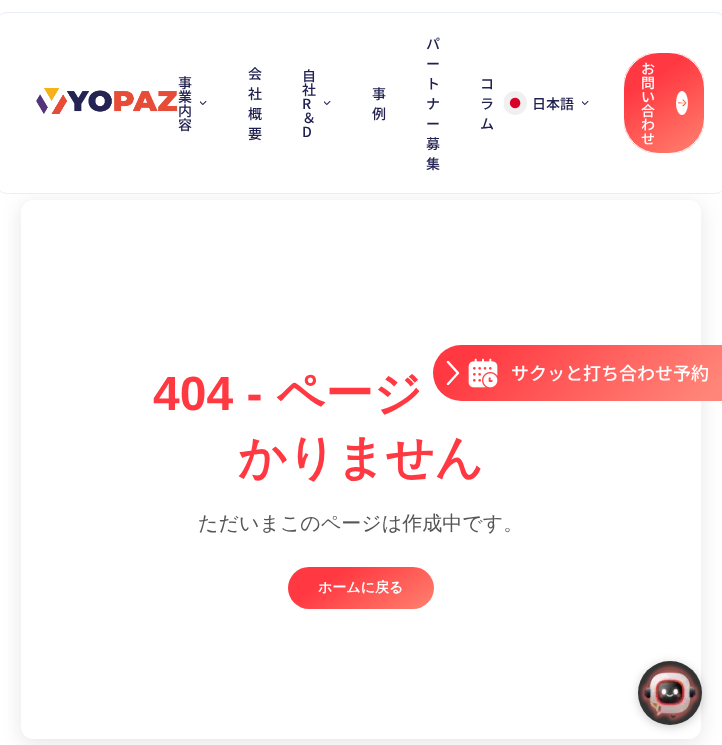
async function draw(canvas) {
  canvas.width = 722
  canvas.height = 745
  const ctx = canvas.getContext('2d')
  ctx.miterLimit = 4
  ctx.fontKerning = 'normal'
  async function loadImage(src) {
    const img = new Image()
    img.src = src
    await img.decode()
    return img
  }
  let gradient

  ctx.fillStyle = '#fff'
  ctx.fillRect(0, 0, 722, 745)
  ctx.fillStyle = '#0000001a'
  ctx.filter = 'blur(10px)'
  ctx.beginPath()
  ctx.roundRect(21, 204, 680, 539, 12)
  ctx.fill()
  ctx.filter = 'none'
  ctx.save()
  ctx.beginPath()
  ctx.roundRect(-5, 12, 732, 182, 12)
  ctx.clip()
  gradient = ctx.createLinearGradient(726, 103, -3.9, 103)
  gradient.addColorStop(0, '#ffffffe6')
  gradient.addColorStop(1, '#fff')
  ctx.fillStyle = gradient
  ctx.fillRect(0, 12, 722, 182)
  ctx.restore()
  ctx.beginPath()
  ctx.roundRect(-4.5, 12.5, 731, 181, 11.5)
  ctx.strokeStyle = '#e9eef5'
  ctx.stroke()
  ctx.drawImage(await loadImage('image0.png'), 36, 88, 142, 26)
  ctx.font = '500 14px Noto Sans JP'
  ctx.fillStyle = '#202051'
  ctx.fillText('事', 178, 88)
  ctx.fillText('業', 178, 102)
  ctx.fillText('内', 178, 116)
  ctx.fillText('容', 178, 130)
  ctx.drawImage(await loadImage('image1.png'), 200, 100, 7, 5)
  ctx.fillText('会', 248, 79)
  ctx.fillText('社', 248, 99)
  ctx.fillText('概', 248, 119)
  ctx.fillText('要', 248, 139)
  ctx.fillText('自', 302, 81)
  ctx.fillText('社', 302, 95)
  ctx.fillText('R', 302, 109)
  ctx.fillText('＆', 302, 123)
  ctx.fillText('D', 302, 137)
  ctx.drawImage(await loadImage('image1.png'), 324, 100, 7, 5)
  ctx.fillText('事', 372, 99)
  ctx.fillText('例', 372, 119)
  ctx.fillText('パ', 426, 49)
  ctx.fillText('ー', 426, 69)
  ctx.fillText('ト', 426, 89)
  ctx.fillText('ナ', 426, 109)
  ctx.fillText('ー', 426, 129)
  ctx.fillText('募', 426, 149)
  ctx.fillText('集', 426, 169)
  ctx.fillText('コ', 480, 89)
  ctx.fillText('ラ', 480, 109)
  ctx.fillText('ム', 480, 129)
  ctx.drawImage(await loadImage('image2.png'), 504, 91, 23, 24)
  ctx.fillText('日本語', 532, 109)
  ctx.drawImage(await loadImage('image1.png'), 582, 100, 7, 5)
  ctx.save()
  ctx.beginPath()
  ctx.roundRect(623, 52, 82, 102, 36)
  ctx.clip()
  gradient = ctx.createLinearGradient(630, 49, 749, 239)
  gradient.addColorStop(0.16, '#ff3841')
  gradient.addColorStop(1, '#ffd0a0')
  ctx.fillStyle = gradient
  ctx.fillRect(624, 53, 80, 100)
  ctx.restore()
  ctx.beginPath()
  ctx.roundRect(623.5, 52.5, 81, 101, 35.5)
  ctx.strokeStyle = '#fff'
  ctx.stroke()
  ctx.fillStyle = '#fff'
  ctx.fillText('お', 641, 74)
  ctx.fillText('問', 641, 88)
  ctx.fillText('い', 641, 102)
  ctx.fillText('合', 641, 116)
  ctx.fillText('わ', 641, 130)
  ctx.fillText('せ', 641, 144)
  ctx.beginPath()
  ctx.ellipse(682, 103, 6, 12, 0, 0, 2 * Math.PI)
  ctx.fill()
  ctx.drawImage(await loadImage('image3.png'), 678, 99, 9, 8)
  ctx.beginPath()
  ctx.roundRect(21, 200, 680, 539, 12)
  ctx.fill()
  gradient = ctx.createLinearGradient(487, 288, 668, 458)
  gradient.addColorStop(0.13, '#ff3841')
  gradient.addColorStop(0.95, '#ff8679')
  ctx.fillStyle = gradient
  ctx.beginPath()
  ctx.roundRect(433, 345, 289, 56, [28, 0, 0, 28])
  ctx.fill()
  ctx.save()
  ctx.beginPath()
  ctx.rect(441, 361, 24, 24)
  ctx.clip()
  ctx.beginPath()
  ctx.moveTo(448, 362)
  ctx.lineTo(458, 373)
  ctx.lineTo(448, 384)
  ctx.lineWidth = 2.4
  ctx.lineCap = 'round'
  ctx.lineJoin = 'round'
  ctx.stroke()
  ctx.restore()
  ctx.drawImage(await loadImage('image4.png'), 468, 358, 30, 30)
  ctx.font = '500 18px Noto Sans JP'
  ctx.fillStyle = '#fff'
  ctx.fillText('サクッと打ち合わせ予約', 511, 380)
  ctx.font = 'bold 48px Liberation Sans'
  ctx.fillStyle = '#ff3841'
  ctx.fillText('404 -', 153, 410)
  ctx.font = 'bold 48px WenQuanYi Zen Hei'
  ctx.fillText('ページ', 276, 410)
  ctx.fillText('かりません', 238, 474)
  ctx.font = '500 20px WenQuanYi Zen Hei'
  ctx.fillStyle = '#555'
  ctx.fillText('ただいまこのページは作成中です。', 198, 530)
  gradient = ctx.createLinearGradient(331, 540, 436, 709)
  gradient.addColorStop(0.16, '#ff3841')
  gradient.addColorStop(1, '#ffd0a0')
  ctx.fillStyle = gradient
  ctx.beginPath()
  ctx.roundRect(288, 567, 146, 42, 21)
  ctx.fill()
  ctx.font = 'bold 14px WenQuanYi Zen Hei'
  ctx.fillStyle = '#fff'
  ctx.fillText('ホームに戻る', 318, 592)
  ctx.fillStyle = '#00000033'
  ctx.filter = 'blur(5px)'
  ctx.beginPath()
  ctx.roundRect(638, 663, 64, 64, 32)
  ctx.fill()
  ctx.filter = 'none'
  ctx.fillStyle = '#333'
  ctx.beginPath()
  ctx.arc(670, 693, 32, 0, 2 * Math.PI)
  ctx.fill()
  ctx.drawImage(await loadImage('image5.png'), 639, 664, 62, 59)
}

draw(document.querySelector('canvas'))
